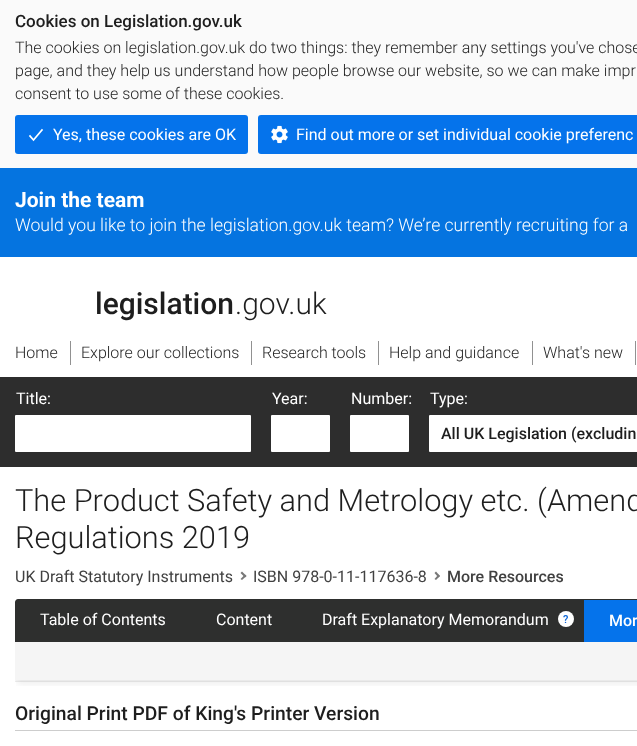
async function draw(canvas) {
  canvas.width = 637
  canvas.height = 746
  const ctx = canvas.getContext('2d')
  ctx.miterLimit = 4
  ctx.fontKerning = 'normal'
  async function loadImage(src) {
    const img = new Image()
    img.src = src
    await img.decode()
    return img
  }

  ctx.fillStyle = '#fff'
  ctx.fillRect(0, 0, 637, 746)
  ctx.fillStyle = '#fafafa'
  ctx.fillRect(0, 0, 637, 168)
  ctx.font = '500 17px Roboto'
  ctx.fillStyle = '#1e1e1e'
  ctx.fillText('Cookies on Legislation.gov.uk', 15, 27)
  ctx.font = '300 16px Roboto'
  ctx.fillText('The cookies on legislation.gov.uk do two things: they remember any settings you\'ve chose', 15, 53)
  ctx.fillText('page, and they help us understand how people browse our website, so we can make impr', 15, 76)
  ctx.fillText('consent to use some of these cookies.', 15, 99)
  ctx.fillStyle = '#0573eb'
  ctx.beginPath()
  ctx.roundRect(15, 115, 233, 39, 3)
  ctx.fill()
  ctx.beginPath()
  ctx.moveTo(42, 130)
  ctx.lineTo(33.5, 140)
  ctx.lineTo(30, 136)
  ctx.strokeStyle = '#fff'
  ctx.lineWidth = 1.7
  ctx.lineCap = 'square'
  ctx.stroke()
  ctx.font = '16px Roboto'
  ctx.fillStyle = '#fff'
  ctx.fillText('Yes, these cookies are OK', 53, 140)
  ctx.fillStyle = '#0573eb'
  ctx.beginPath()
  ctx.roundRect(258, 115, 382, 39, 3)
  ctx.fill()
  ctx.drawImage(await loadImage('image0.png'), 271, 125, 17, 19)
  ctx.fillStyle = '#fff'
  ctx.fillText('Find out more or set individual cookie preferenc', 296, 140)
  ctx.fillStyle = '#0574e0'
  ctx.fillRect(0, 168, 637, 89)
  ctx.font = 'bold 21px Roboto'
  ctx.fillStyle = '#fff'
  ctx.fillText('Join the team', 15, 207)
  ctx.font = '300 17.6px Roboto'
  ctx.fillText('Would you like to join the legislation.gov.uk team? We’re currently recruiting for a', 15, 231)
  ctx.font = '500 30px Roboto'
  ctx.fillStyle = '#1e1e1e'
  ctx.fillText('legislation', 95, 314)
  ctx.font = '300 30px Roboto'
  ctx.fillText('.gov.uk', 235, 314)
  ctx.fillStyle = '#2d2d2d'
  ctx.fillRect(0, 377, 637, 90)
  ctx.font = '300 16px Roboto'
  ctx.fillStyle = '#1e1e1e'
  ctx.fillText('Home', 15, 358)
  ctx.fillStyle = '#919191'
  ctx.fillRect(70, 341, 1, 24)
  ctx.fillStyle = '#1e1e1e'
  ctx.fillText('Explore our collections', 81, 358)
  ctx.fillStyle = '#919191'
  ctx.fillRect(251, 341, 1, 24)
  ctx.fillStyle = '#1e1e1e'
  ctx.fillText('Research tools', 262, 358)
  ctx.fillStyle = '#919191'
  ctx.fillRect(378, 341, 1, 24)
  ctx.fillStyle = '#1e1e1e'
  ctx.fillText('Help and guidance', 389, 358)
  ctx.fillStyle = '#919191'
  ctx.fillRect(532, 341, 1, 24)
  ctx.fillStyle = '#1e1e1e'
  ctx.fillText('What\'s new', 543, 358)
  ctx.fillStyle = '#919191'
  ctx.fillRect(635, 341, 1, 24)
  ctx.font = '16px Roboto'
  ctx.fillStyle = '#fff'
  ctx.fillText('Title:', 16, 404)
  ctx.beginPath()
  ctx.roundRect(15, 415, 236, 37, 1)
  ctx.fill()
  ctx.fillText('Year:', 272, 404)
  ctx.beginPath()
  ctx.roundRect(271, 415, 59, 37, 1)
  ctx.fill()
  ctx.fillText('Number:', 351, 404)
  ctx.beginPath()
  ctx.roundRect(350, 415, 59, 37, 1)
  ctx.fill()
  ctx.fillText('Type:', 430, 404)
  ctx.beginPath()
  ctx.roundRect(429, 415, 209, 37, 1)
  ctx.fill()
  ctx.font = '500 16px Roboto'
  ctx.fillStyle = '#1e1e1e'
  ctx.fillText('All UK Legislation (excludin', 441, 439)
  ctx.font = '300 30.75px Roboto'
  ctx.fillText('The Product Safety and Metrology etc. (Amend', 15, 511)
  ctx.fillText('Regulations 2019', 15, 548)
  ctx.font = '16px Roboto'
  ctx.fillStyle = '#414141'
  ctx.fillText('UK Draft Statutory Instruments', 15, 582)
  ctx.fillStyle = '#787878'
  ctx.beginPath()
  ctx.moveTo(242, 571.5)
  ctx.lineTo(246.5, 576)
  ctx.lineTo(245, 577.5)
  ctx.lineTo(240.5, 573)
  ctx.closePath()
  ctx.fill()
  ctx.beginPath()
  ctx.moveTo(245, 574.5)
  ctx.lineTo(246.5, 576)
  ctx.lineTo(242, 580)
  ctx.lineTo(240.5, 579)
  ctx.closePath()
  ctx.fill()
  ctx.fillStyle = '#414141'
  ctx.fillText('ISBN 978-0-11-117636-8', 253, 582)
  ctx.fillStyle = '#787878'
  ctx.beginPath()
  ctx.moveTo(436, 571.5)
  ctx.lineTo(440, 576)
  ctx.lineTo(438.5, 577.5)
  ctx.lineTo(434.5, 573)
  ctx.closePath()
  ctx.fill()
  ctx.beginPath()
  ctx.moveTo(438.5, 574.5)
  ctx.lineTo(440, 576)
  ctx.lineTo(436, 580)
  ctx.lineTo(434.5, 579)
  ctx.closePath()
  ctx.fill()
  ctx.font = '500 16px Roboto'
  ctx.fillStyle = '#414141'
  ctx.fillText('More Resources', 447, 582)
  ctx.fillStyle = '#2e2f2e'
  ctx.beginPath()
  ctx.moveTo(18, 599)
  ctx.lineTo(637, 599)
  ctx.bezierCurveTo(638.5, 599, 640, 600.5, 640, 602)
  ctx.lineTo(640, 642)
  ctx.lineTo(15, 642)
  ctx.lineTo(15, 602)
  ctx.bezierCurveTo(15, 600.5, 16.5, 599, 18, 599)
  ctx.closePath()
  ctx.fill()
  ctx.font = '16px Roboto'
  ctx.fillStyle = '#fff'
  ctx.fillText('Table of Contents', 40, 625)
  ctx.fillText('Content', 216, 625)
  ctx.fillText('Draft Explanatory Memorandum', 322, 625)
  ctx.beginPath()
  ctx.arc(566, 619, 8, 0, 2 * Math.PI)
  ctx.fill()
  ctx.font = '500 11px Roboto'
  ctx.fillStyle = '#0a64d7'
  ctx.fillText('?', 563, 623)
  ctx.fillStyle = '#0573eb'
  ctx.fillRect(584, 600, 53, 42)
  ctx.font = '500 16px Roboto'
  ctx.fillStyle = '#fff'
  ctx.fillText('Mor', 609, 626)
  ctx.fillStyle = '#f5f5f5'
  ctx.fillRect(15, 642, 622, 39)
  ctx.fillStyle = '#ebebeb'
  ctx.fillRect(15, 681, 622, 1)
  ctx.save()
  ctx.beginPath()
  ctx.rect(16, 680, 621, 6)
  ctx.clip()
  ctx.fillStyle = '#01010112'
  ctx.filter = 'blur(3px)'
  ctx.beginPath()
  ctx.rect(17, 678, 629, 6)
  ctx.fill()
  ctx.filter = 'none'
  ctx.restore()
  ctx.fillStyle = '#cdcdcd'
  ctx.fillRect(15, 730, 622, 1)
  ctx.font = '500 19.25px Roboto'
  ctx.fillStyle = '#1e1e1e'
  ctx.fillText('Original Print PDF of King\'s Printer Version', 15, 720)
}

draw(document.querySelector('canvas'))
